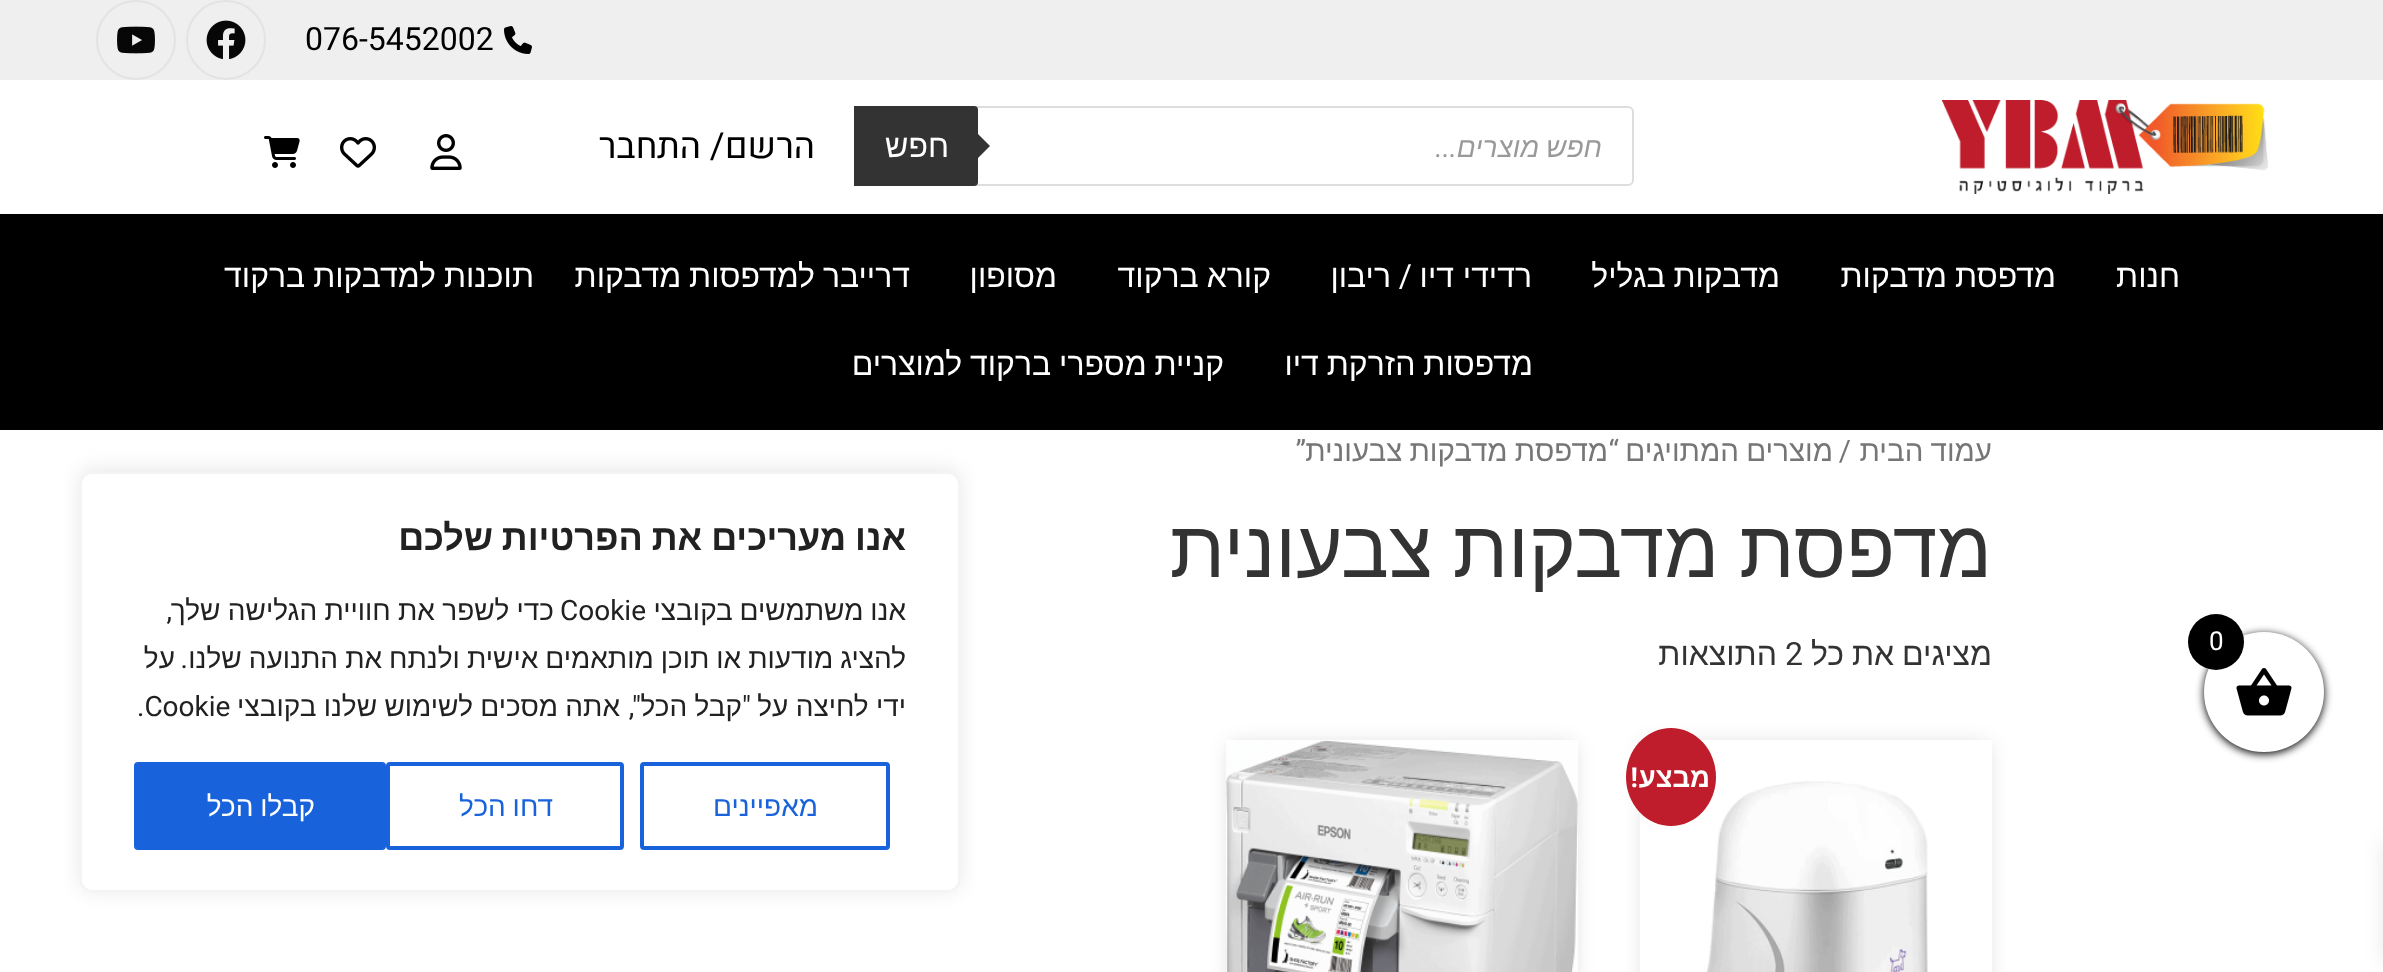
async function draw(canvas) {
  canvas.width = 2383
  canvas.height = 972
  const ctx = canvas.getContext('2d')
  ctx.miterLimit = 4
  ctx.fontKerning = 'normal'
  async function loadImage(src) {
    const img = new Image()
    img.src = src
    await img.decode()
    return img
  }

  ctx.fillStyle = '#fff'
  ctx.fillRect(0, 0, 2383, 972)
  ctx.fillStyle = '#efefef'
  ctx.fillRect(0, 0, 2383, 80)
  ctx.drawImage(await loadImage('image0.png'), 504, 26, 28, 28)
  ctx.font = '32px Heebo'
  ctx.fillStyle = '#000'
  ctx.fillText('076-5452002', 305, 50)
  ctx.beginPath()
  ctx.arc(226, 40, 39, 0, 2 * Math.PI)
  ctx.strokeStyle = '#e3e3e3'
  ctx.lineWidth = 2
  ctx.stroke()
  ctx.drawImage(await loadImage('image1.png'), 206, 20, 40, 40)
  ctx.beginPath()
  ctx.arc(136, 40, 39, 0, 2 * Math.PI)
  ctx.stroke()
  ctx.drawImage(await loadImage('image2.png'), 117, 26, 38, 28)
  ctx.drawImage(await loadImage('image3.png'), 1942, 100, 326, 94)
  ctx.beginPath()
  ctx.roundRect(855, 107, 778, 78, 5)
  ctx.strokeStyle = '#ddd'
  ctx.stroke()
  ctx.wordSpacing = '-1px'
  ctx.direction = 'rtl'
  ctx.font = 'italic 28px Liberation Sans'
  ctx.fillStyle = '#999'
  ctx.fillText('חפש מוצרים', 1602, 157)
  ctx.wordSpacing = '0px'
  ctx.font = 'italic 28px Roboto'
  ctx.fillText('...', 1457, 157)
  ctx.fillStyle = '#333'
  ctx.beginPath()
  ctx.roundRect(854, 106, 124, 80, [0, 4, 4, 0])
  ctx.fill()
  ctx.beginPath()
  ctx.moveTo(974, 162)
  ctx.lineTo(974, 130)
  ctx.lineTo(990, 146)
  ctx.closePath()
  ctx.fill()
  ctx.font = '32px Liberation Sans'
  ctx.fillStyle = '#fff'
  ctx.fillText('חפש', 949, 157)
  ctx.font = '36px Heebo'
  ctx.fillStyle = '#000'
  ctx.fillText('הרשם/ התחבר', 815, 158)
  ctx.drawImage(await loadImage('image4.png'), 430, 134, 32, 36)
  ctx.drawImage(await loadImage('image5.png'), 340, 137, 36, 31)
  ctx.drawImage(await loadImage('image6.png'), 264, 136, 36, 32)
  ctx.fillRect(0, 214, 2383, 216)
  ctx.font = '32px Liberation Sans'
  ctx.fillStyle = '#fff'
  ctx.fillText('חנות', 2180, 287)
  ctx.wordSpacing = '-1px'
  ctx.fillText('מדפסת מדבקות', 2056, 287)
  ctx.fillText('מדבקות בגליל', 1780, 287)
  ctx.wordSpacing = '0px'
  ctx.fillText('רדידי דיו', 1532, 287)
  ctx.font = '32px Roboto'
  ctx.fillText('/', 1412, 287)
  ctx.font = '32px Liberation Sans'
  ctx.fillText('ריבון', 1391, 287)
  ctx.wordSpacing = '-1px'
  ctx.fillText('קורא ברקוד', 1271, 287)
  ctx.wordSpacing = '0px'
  ctx.fillText('מסופון', 1057, 287)
  ctx.wordSpacing = '-1px'
  ctx.fillText('דרייבר למדפסות מדבקות', 910, 287)
  ctx.fillText('תוכנות למדבקות ברקוד', 534, 287)
  ctx.fillText('מדפסות הזרקת דיו', 1533, 375)
  ctx.fillText('קניית מספרי ברקוד למוצרים', 1224, 375)
  ctx.fillStyle = '#000'
  ctx.filter = 'blur(4px)'
  ctx.beginPath()
  ctx.roundRect(2204, 634, 120, 120, 60)
  ctx.fill()
  ctx.filter = 'none'
  ctx.fillStyle = '#fff'
  ctx.beginPath()
  ctx.arc(2264, 692, 60, 0, 2 * Math.PI)
  ctx.fill()
  ctx.drawImage(await loadImage('image7.png'), 2236, 668, 56, 48)
  ctx.fillStyle = '#000'
  ctx.beginPath()
  ctx.arc(2216, 642, 28, 0, 2 * Math.PI)
  ctx.fill()
  ctx.wordSpacing = '0px'
  ctx.direction = 'ltr'
  ctx.font = '26px Roboto'
  ctx.fillStyle = '#fff'
  ctx.fillText('0', 2209, 650)
  ctx.fillStyle = '#0000001a'
  ctx.filter = 'blur(10px)'
  ctx.beginPath()
  ctx.rect(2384, 842, 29, 120)
  ctx.fill()
  ctx.filter = 'none'
  ctx.wordSpacing = '-1px'
  ctx.direction = 'rtl'
  ctx.font = '29.5px Liberation Sans'
  ctx.fillStyle = '#767676'
  ctx.fillText('עמוד הבית', 1992, 461)
  ctx.wordSpacing = '0px'
  ctx.font = '29.5px Roboto'
  ctx.fillText('/', 1851, 461)
  ctx.wordSpacing = '-1px'
  ctx.font = '29.5px Liberation Sans'
  ctx.fillText('מוצרים המתויגים', 1833, 461)
  ctx.wordSpacing = '0px'
  ctx.font = '29.5px Roboto'
  ctx.fillText('“', 1619, 461)
  ctx.wordSpacing = '-1px'
  ctx.font = '29.5px Liberation Sans'
  ctx.fillText('מדפסת מדבקות צבעונית', 1608, 461)
  ctx.wordSpacing = '0px'
  ctx.font = '29.5px Roboto'
  ctx.fillText('”', 1306, 461)
  ctx.wordSpacing = '-2px'
  ctx.font = '80px Liberation Sans'
  ctx.fillStyle = '#333'
  ctx.fillText('מדפסת מדבקות צבעונית', 1992, 577)
  ctx.wordSpacing = '-1px'
  ctx.font = '32px Liberation Sans'
  ctx.fillText('מציגים את כל', 1992, 665)
  ctx.wordSpacing = '0px'
  ctx.direction = 'ltr'
  ctx.font = '32px Roboto'
  ctx.fillText('2', 1785, 665)
  ctx.direction = 'rtl'
  ctx.font = '32px Liberation Sans'
  ctx.fillText('התוצאות', 1777, 665)
  ctx.save()
  ctx.beginPath()
  ctx.moveTo(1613, 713)
  ctx.lineTo(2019, 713)
  ctx.lineTo(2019, 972)
  ctx.lineTo(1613, 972)
  ctx.closePath()
  ctx.moveTo(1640, 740)
  ctx.lineTo(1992, 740)
  ctx.lineTo(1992, 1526)
  ctx.lineTo(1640, 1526)
  ctx.closePath()
  ctx.clip('evenodd')
  ctx.fillStyle = '#00000026'
  ctx.filter = 'blur(10px)'
  ctx.beginPath()
  ctx.rect(1644, 744, 344, 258)
  ctx.fill()
  ctx.filter = 'none'
  ctx.restore()
  ctx.drawImage(await loadImage('image8.png'), 1706, 781, 222, 191)
  ctx.fillStyle = '#bf1d2b'
  ctx.beginPath()
  ctx.ellipse(1671, 777, 45, 49, 0, 0, 2 * Math.PI)
  ctx.fill()
  ctx.font = 'bold 27.5px Liberation Sans'
  ctx.fillStyle = '#fff'
  ctx.fillText('מבצע', 1710, 787)
  ctx.font = 'bold 27.5px Roboto'
  ctx.fillText('!', 1638, 787)
  ctx.fillStyle = '#00000026'
  ctx.filter = 'blur(10px)'
  ctx.beginPath()
  ctx.rect(1230, 744, 344, 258)
  ctx.fill()
  ctx.filter = 'none'
  ctx.drawImage(await loadImage('image9.png'), 1226, 740, 352, 232)
  ctx.fillStyle = '#acabab4d'
  ctx.filter = 'blur(10px)'
  ctx.beginPath()
  ctx.roundRect(80, 470, 880, 420, 12)
  ctx.fill()
  ctx.filter = 'none'
  ctx.fillStyle = '#fff'
  ctx.beginPath()
  ctx.roundRect(81, 473, 878, 418, 11)
  ctx.fill()
  ctx.strokeStyle = '#f4f4f4'
  ctx.stroke()
  ctx.wordSpacing = '-1px'
  ctx.font = 'bold 36px Liberation Sans'
  ctx.fillStyle = '#212121'
  ctx.fillText('אנו מעריכים את הפרטיות שלכם', 906, 550)
  ctx.font = '28px Liberation Sans'
  ctx.fillText('אנו משתמשים בקובצי', 906, 620)
  ctx.wordSpacing = '0px'
  ctx.direction = 'ltr'
  ctx.font = '28px Roboto'
  ctx.fillText('Cookie', 560, 620)
  ctx.wordSpacing = '-0.5px'
  ctx.direction = 'rtl'
  ctx.font = '28px Liberation Sans'
  ctx.fillText('כדי לשפר את חוויית הגלישה שלך', 554, 620)
  ctx.wordSpacing = '0px'
  ctx.font = '28px Roboto'
  ctx.fillText(',', 172, 620)
  ctx.wordSpacing = '-0.75px'
  ctx.font = '28px Liberation Sans'
  ctx.fillText('להציג מודעות או תוכן מותאמים אישית ולנתח את התנועה שלנו', 906, 668)
  ctx.wordSpacing = '0px'
  ctx.font = '28px Roboto'
  ctx.fillText('.', 188, 668)
  ctx.font = '28px Liberation Sans'
  ctx.fillText('על', 175, 668)
  ctx.wordSpacing = '-0.5px'
  ctx.fillText('ידי לחיצה על', 906, 716)
  ctx.wordSpacing = '0px'
  ctx.font = '28px Roboto'
  ctx.fillText('"', 751, 716)
  ctx.wordSpacing = '-0.5px'
  ctx.font = '28px Liberation Sans'
  ctx.fillText('קבל הכל', 742, 716)
  ctx.wordSpacing = '0px'
  ctx.font = '28px Roboto'
  ctx.fillText('",', 641, 716)
  ctx.wordSpacing = '-0.5px'
  ctx.font = '28px Liberation Sans'
  ctx.fillText('אתה מסכים לשימוש שלנו בקובצי', 620, 716)
  ctx.wordSpacing = '0px'
  ctx.direction = 'ltr'
  ctx.font = '28px Roboto'
  ctx.fillText('.Cookie', 137, 716)
  ctx.beginPath()
  ctx.roundRect(642, 764, 246, 84, 2)
  ctx.strokeStyle = '#1863dc'
  ctx.lineWidth = 4
  ctx.stroke()
  ctx.direction = 'rtl'
  ctx.font = '28px Liberation Sans'
  ctx.fillStyle = '#1863dc'
  ctx.fillText('מאפיינים', 818, 816)
  ctx.beginPath()
  ctx.roundRect(388, 764, 234, 84, 2)
  ctx.stroke()
  ctx.wordSpacing = '-1px'
  ctx.fillText('דחו הכל', 553, 816)
  ctx.beginPath()
  ctx.roundRect(136, 764, 248, 84, 2)
  ctx.fill()
  ctx.stroke()
  ctx.fillStyle = '#fff'
  ctx.fillText('קבלו הכל', 315, 816)
}

draw(document.querySelector('canvas'))
